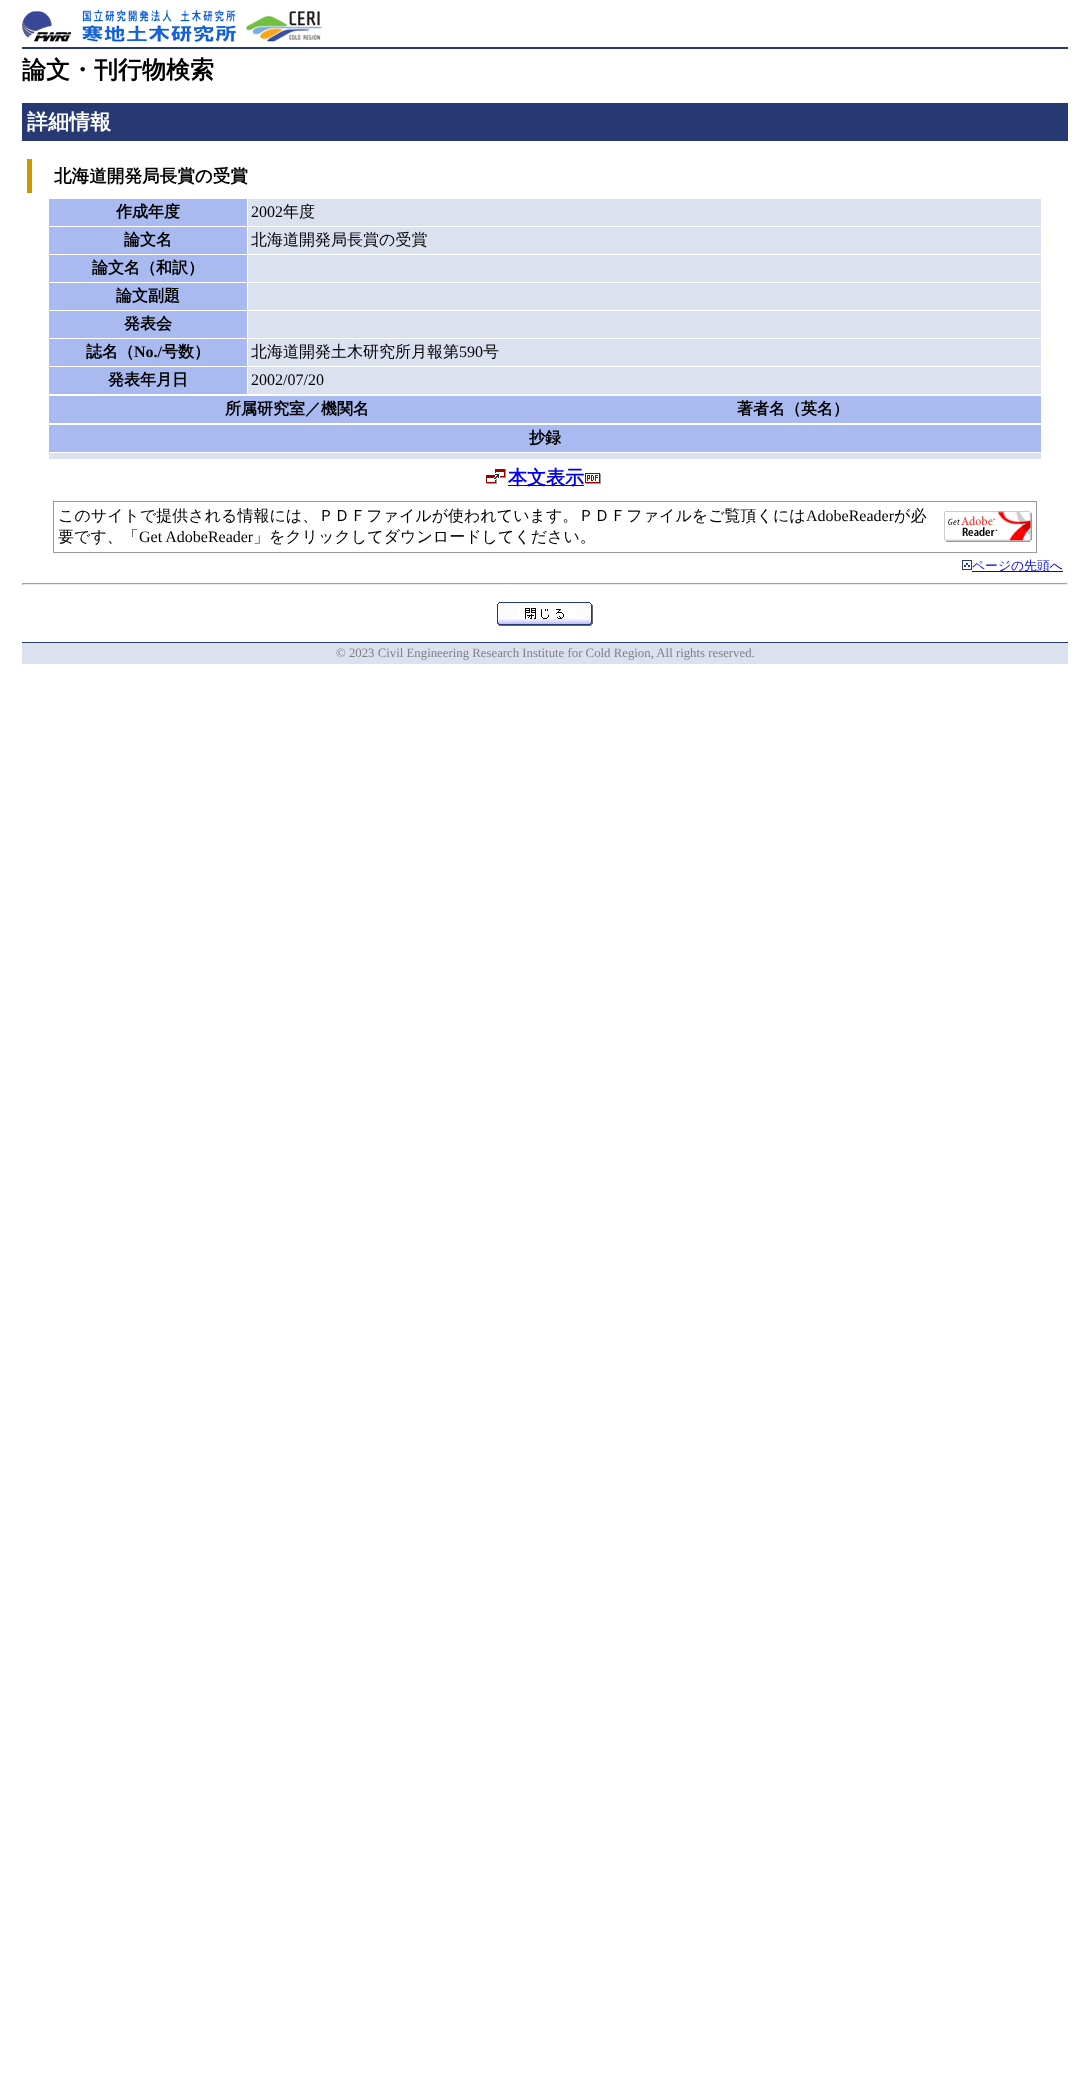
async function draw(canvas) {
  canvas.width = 1090
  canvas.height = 2073
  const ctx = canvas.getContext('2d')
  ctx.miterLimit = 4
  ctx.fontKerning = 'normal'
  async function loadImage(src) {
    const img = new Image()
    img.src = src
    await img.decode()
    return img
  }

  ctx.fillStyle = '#fff'
  ctx.fillRect(0, 0, 1090, 2073)
  ctx.fillStyle = '#263973'
  ctx.fillRect(22, 47, 1046, 2)
  ctx.drawImage(await loadImage('image0.png'), 22, 10, 300, 32)
  ctx.font = 'bold 24px WenQuanYi Zen Hei'
  ctx.fillStyle = '#000'
  ctx.fillText('論文・刊行物検索', 22, 78)
  ctx.fillStyle = '#263973'
  ctx.fillRect(22, 103, 1046, 38)
  ctx.font = 'bold 21px WenQuanYi Zen Hei'
  ctx.fillStyle = '#fff'
  ctx.fillText('詳細情報', 27, 129)
  ctx.fillStyle = '#c90'
  ctx.fillRect(27, 159, 5, 34)
  ctx.font = 'bold 17.6px WenQuanYi Zen Hei'
  ctx.fillStyle = '#000'
  ctx.fillText('北海道開発局長賞の受賞', 54, 182)
  ctx.fillStyle = '#a8baf0'
  ctx.fillRect(49, 199, 198, 27)
  ctx.font = 'bold 16px WenQuanYi Zen Hei'
  ctx.fillStyle = '#000'
  ctx.fillText('作成年度', 116, 217)
  ctx.fillStyle = '#dce1f0'
  ctx.fillRect(248, 199, 793, 27)
  ctx.font = '16px Liberation Serif'
  ctx.fillStyle = '#000'
  ctx.fillText('2002', 251, 217)
  ctx.font = '500 16px WenQuanYi Zen Hei'
  ctx.fillText('年度', 283, 217)
  ctx.fillStyle = '#a8baf0'
  ctx.fillRect(49, 227, 198, 27)
  ctx.font = 'bold 16px WenQuanYi Zen Hei'
  ctx.fillStyle = '#000'
  ctx.fillText('論文名', 124, 245)
  ctx.fillStyle = '#dce1f0'
  ctx.fillRect(248, 227, 793, 27)
  ctx.font = '500 16px WenQuanYi Zen Hei'
  ctx.fillStyle = '#000'
  ctx.fillText('北海道開発局長賞の受賞', 251, 245)
  ctx.fillStyle = '#a8baf0'
  ctx.fillRect(49, 255, 198, 27)
  ctx.font = 'bold 16px WenQuanYi Zen Hei'
  ctx.fillStyle = '#000'
  ctx.fillText('論文名（和訳）', 92, 273)
  ctx.fillStyle = '#dce1f0'
  ctx.fillRect(248, 255, 793, 27)
  ctx.fillStyle = '#a8baf0'
  ctx.fillRect(49, 283, 198, 27)
  ctx.fillStyle = '#000'
  ctx.fillText('論文副題', 116, 301)
  ctx.fillStyle = '#dce1f0'
  ctx.fillRect(248, 283, 793, 27)
  ctx.fillStyle = '#a8baf0'
  ctx.fillRect(49, 311, 198, 27)
  ctx.fillStyle = '#000'
  ctx.fillText('発表会', 124, 329)
  ctx.fillStyle = '#dce1f0'
  ctx.fillRect(248, 311, 793, 27)
  ctx.fillStyle = '#a8baf0'
  ctx.fillRect(49, 339, 198, 27)
  ctx.fillStyle = '#000'
  ctx.fillText('誌名（', 86, 357)
  ctx.font = 'bold 16px Liberation Serif'
  ctx.fillText('No./', 134, 357)
  ctx.font = 'bold 16px WenQuanYi Zen Hei'
  ctx.fillText('号数）', 162, 357)
  ctx.fillStyle = '#dce1f0'
  ctx.fillRect(248, 339, 793, 27)
  ctx.font = '500 16px WenQuanYi Zen Hei'
  ctx.fillStyle = '#000'
  ctx.fillText('北海道開発土木研究所月報第', 251, 357)
  ctx.font = '16px Liberation Serif'
  ctx.fillText('590', 459, 357)
  ctx.font = '500 16px WenQuanYi Zen Hei'
  ctx.fillText('号', 483, 357)
  ctx.fillStyle = '#a8baf0'
  ctx.fillRect(49, 367, 198, 27)
  ctx.font = 'bold 16px WenQuanYi Zen Hei'
  ctx.fillStyle = '#000'
  ctx.fillText('発表年月日', 108, 385)
  ctx.fillStyle = '#dce1f0'
  ctx.fillRect(248, 367, 793, 27)
  ctx.font = '16px Liberation Serif'
  ctx.fillStyle = '#000'
  ctx.fillText('2002/07/20', 251, 385)
  ctx.fillStyle = '#a8baf0'
  ctx.fillRect(49, 396, 992, 27)
  ctx.font = 'bold 16px WenQuanYi Zen Hei'
  ctx.fillStyle = '#000'
  ctx.fillText('所属研究室／機関名', 225, 414)
  ctx.fillText('著者名（英名）', 737, 414)
  ctx.fillStyle = '#a8baf0'
  ctx.fillRect(49, 425, 992, 27)
  ctx.fillStyle = '#000'
  ctx.fillText('抄録', 529, 443)
  ctx.fillStyle = '#dce1f0'
  ctx.fillRect(49, 453, 992, 6)
  ctx.drawImage(await loadImage('image1.png'), 486, 469, 20, 15)
  ctx.fillStyle = '#00e'
  ctx.fillRect(508, 485, 76, 1)
  ctx.font = 'bold 19px WenQuanYi Zen Hei'
  ctx.fillText('本文表示', 508, 484)
  ctx.drawImage(await loadImage('image2.png'), 585, 473, 16, 11)
  ctx.strokeStyle = '#999'
  ctx.strokeRect(53.5, 501.5, 983, 51)
  ctx.font = '500 16px WenQuanYi Zen Hei'
  ctx.fillStyle = '#000'
  ctx.fillText('このサイトで提供される情報には、ＰＤＦファイルが使われています。ＰＤＦファイルをご覧頂くには', 58, 521)
  ctx.font = '16px Liberation Serif'
  ctx.fillText('AdobeReader', 806, 521)
  ctx.font = '500 16px WenQuanYi Zen Hei'
  ctx.fillText('が必', 894, 521)
  ctx.fillText('要です、「', 58, 542)
  ctx.font = '16px Liberation Serif'
  ctx.fillText('Get AdobeReader', 139, 542)
  ctx.font = '500 16px WenQuanYi Zen Hei'
  ctx.fillText('」をクリックしてダウンロードしてください。', 253, 542)
  ctx.drawImage(await loadImage('image3.png'), 944, 511, 88, 31)
  ctx.drawImage(await loadImage('image4.png'), 962, 560, 10, 10)
  ctx.fillStyle = '#00e'
  ctx.fillRect(972, 571, 91, 1)
  ctx.font = '500 12.8px WenQuanYi Zen Hei'
  ctx.fillText('ページの先頭へ', 972, 570)
  ctx.fillStyle = '#9f9f9f'
  ctx.fillRect(22, 583, 1046, 1)
  ctx.fillStyle = '#eee'
  ctx.fillRect(1067, 583, 1, 2)
  ctx.fillRect(22, 584, 1046, 1)
  ctx.fillStyle = '#9f9f9f'
  ctx.fillRect(22, 583, 1, 2)
  ctx.drawImage(await loadImage('image5.png'), 497, 602, 96, 24)
  ctx.fillStyle = '#dce1f0'
  ctx.fillRect(22, 643, 1046, 21)
  ctx.fillStyle = '#263973'
  ctx.fillRect(22, 642, 1046, 1)
  ctx.font = '12.8px Liberation Serif'
  ctx.fillStyle = '#808080'
  ctx.fillText('© 2023 Civil Engineering Research Institute for Cold Region, All rights reserved.', 336, 657)
}

draw(document.querySelector('canvas'))
